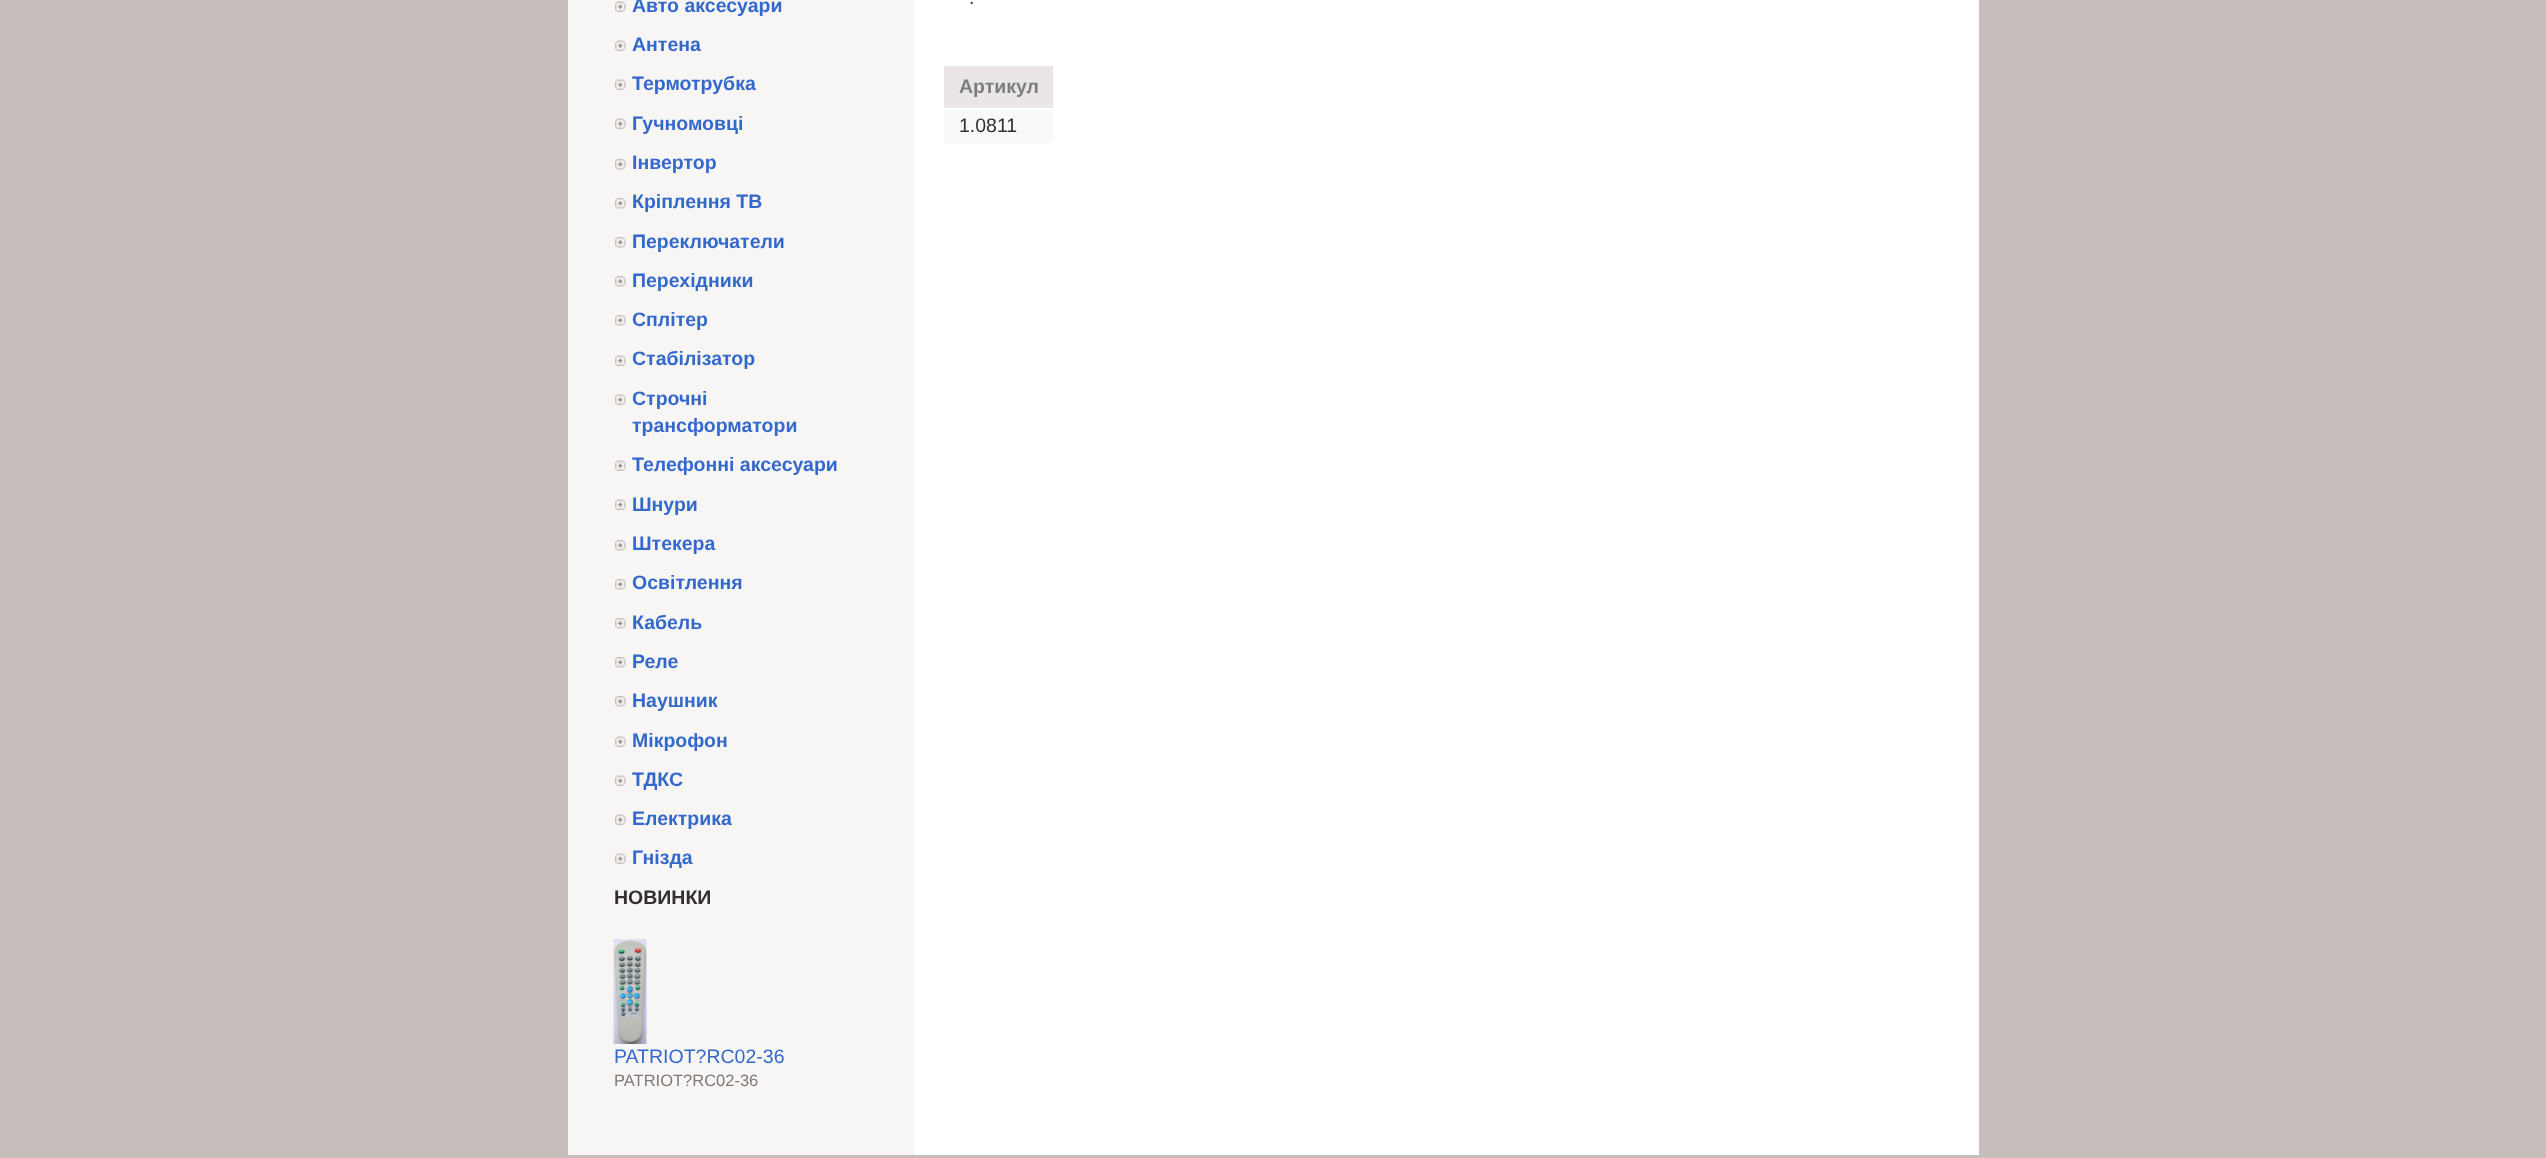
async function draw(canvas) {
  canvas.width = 2546
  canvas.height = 1158
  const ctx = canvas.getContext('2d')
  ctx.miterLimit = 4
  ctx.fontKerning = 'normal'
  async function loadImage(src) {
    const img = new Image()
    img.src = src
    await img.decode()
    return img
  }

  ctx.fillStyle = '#c7bebb'
  ctx.fillRect(0, 0, 2546, 1158)
  ctx.fillStyle = '#fff'
  ctx.fillRect(914, 0, 1065, 1155)
  ctx.fillStyle = '#f8f6f5'
  ctx.fillRect(568, 0, 346, 1155)
  ctx.drawImage(await loadImage('image0.png'), 615, 1, 11, 11)
  ctx.font = 'bold 19.5px Liberation Sans'
  ctx.fillStyle = '#3369cc'
  ctx.fillText('Авто аксесуари', 632, 12)
  ctx.drawImage(await loadImage('image0.png'), 615, 40, 11, 11)
  ctx.fillText('Антена', 632, 51)
  ctx.drawImage(await loadImage('image0.png'), 615, 79, 11, 11)
  ctx.fillText('Термотрубка', 632, 90)
  ctx.drawImage(await loadImage('image0.png'), 615, 118, 11, 11)
  ctx.fillText('Гучномовці', 632, 130)
  ctx.drawImage(await loadImage('image1.png'), 615, 159, 11, 11)
  ctx.fillText('Інвертор', 632, 169)
  ctx.drawImage(await loadImage('image1.png'), 615, 198, 11, 11)
  ctx.fillText('Кріплення ТВ', 632, 208)
  ctx.drawImage(await loadImage('image1.png'), 615, 237, 11, 11)
  ctx.fillText('Переключатели', 632, 248)
  ctx.drawImage(await loadImage('image1.png'), 615, 276, 11, 11)
  ctx.fillText('Перехідники', 632, 287)
  ctx.drawImage(await loadImage('image1.png'), 615, 315, 11, 11)
  ctx.fillText('Сплітер', 632, 326)
  ctx.drawImage(await loadImage('image0.png'), 615, 355, 11, 11)
  ctx.fillText('Стабілізатор', 632, 365)
  ctx.drawImage(await loadImage('image0.png'), 615, 394, 11, 11)
  ctx.fillText('Строчні', 632, 405)
  ctx.fillText('трансформатори', 632, 432)
  ctx.drawImage(await loadImage('image0.png'), 615, 460, 11, 11)
  ctx.fillText('Телефонні аксесуари', 632, 471)
  ctx.drawImage(await loadImage('image0.png'), 615, 499, 11, 11)
  ctx.fillText('Шнури', 632, 511)
  ctx.drawImage(await loadImage('image1.png'), 615, 540, 11, 11)
  ctx.fillText('Штекера', 632, 550)
  ctx.drawImage(await loadImage('image1.png'), 615, 579, 11, 11)
  ctx.fillText('Освітлення', 632, 589)
  ctx.drawImage(await loadImage('image1.png'), 615, 618, 11, 11)
  ctx.fillText('Кабель', 632, 629)
  ctx.drawImage(await loadImage('image1.png'), 615, 657, 11, 11)
  ctx.fillText('Реле', 632, 668)
  ctx.drawImage(await loadImage('image1.png'), 615, 696, 11, 11)
  ctx.fillText('Наушник', 632, 707)
  ctx.drawImage(await loadImage('image0.png'), 615, 736, 11, 11)
  ctx.fillText('Мікрофон', 632, 747)
  ctx.drawImage(await loadImage('image0.png'), 615, 775, 11, 11)
  ctx.fillText('ТДКС', 632, 786)
  ctx.drawImage(await loadImage('image0.png'), 615, 814, 11, 11)
  ctx.fillText('Електрика', 632, 825)
  ctx.drawImage(await loadImage('image0.png'), 615, 853, 11, 11)
  ctx.fillText('Гнізда', 632, 864)
  ctx.fillStyle = '#332f2e'
  ctx.fillText('НОВИНКИ', 614, 904)
  ctx.drawImage(await loadImage('image2.png'), 613, 939, 34, 105)
  ctx.font = '19.5px Liberation Sans'
  ctx.fillStyle = '#3369cc'
  ctx.fillText('PATRIOT?RC02-36', 614, 1063)
  ctx.font = '16.5px Liberation Sans'
  ctx.fillStyle = '#7f7976'
  ctx.fillText('PATRIOT?RC02-36', 614, 1086)
  ctx.font = '19.5px Liberation Sans'
  ctx.fillStyle = '#332f2e'
  ctx.fillText('.', 969, 4)
  ctx.fillStyle = '#e9e6e5'
  ctx.fillRect(944, 66, 109, 42)
  ctx.font = 'bold 19.5px Liberation Sans'
  ctx.fillStyle = '#7e7e7e'
  ctx.fillText('Артикул', 959, 93)
  ctx.fillStyle = '#faf9f9'
  ctx.fillRect(944, 110, 109, 33)
  ctx.font = '19.5px Liberation Sans'
  ctx.fillStyle = '#332f2e'
  ctx.fillText('1.0811', 959, 132)
}

draw(document.querySelector('canvas'))
